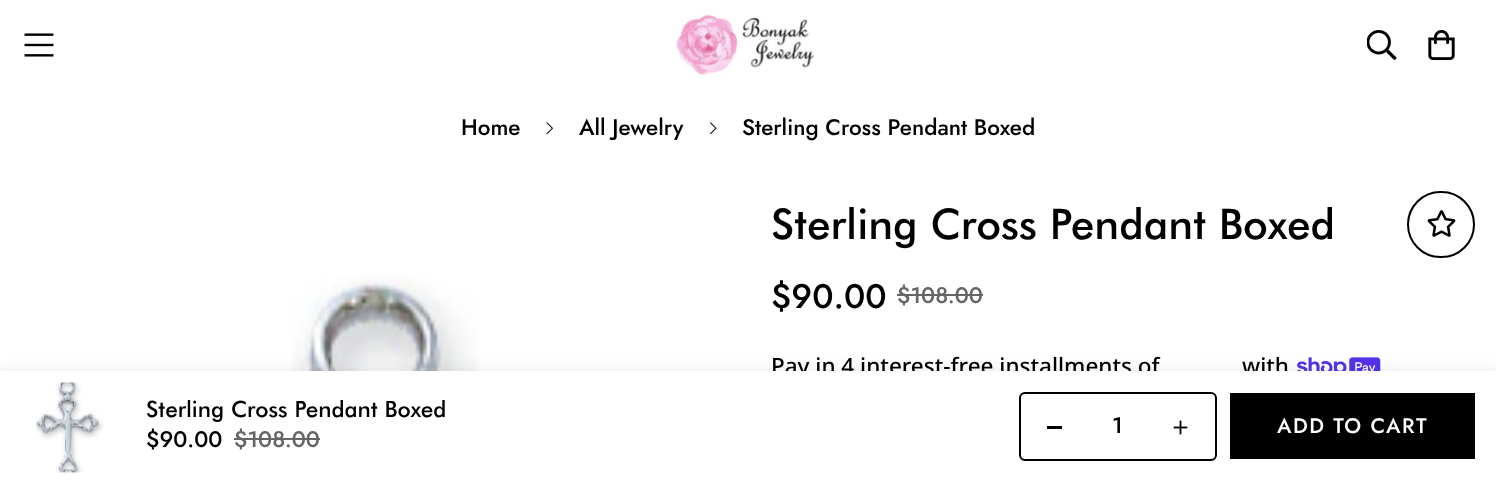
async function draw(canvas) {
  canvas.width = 1496
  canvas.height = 481
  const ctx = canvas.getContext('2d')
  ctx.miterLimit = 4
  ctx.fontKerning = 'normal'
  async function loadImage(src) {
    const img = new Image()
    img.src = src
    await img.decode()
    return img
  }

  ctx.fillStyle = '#fff'
  ctx.fillRect(0, 0, 1496, 481)
  ctx.drawImage(await loadImage('image0.png'), 24, 33, 30, 24)
  ctx.drawImage(await loadImage('image1.png'), 676, 14, 139, 61)
  ctx.drawImage(await loadImage('image2.png'), 1367, 30, 30, 30)
  ctx.drawImage(await loadImage('image3.png'), 1428, 30, 27, 30)
  ctx.font = '500 22.5px Jost'
  ctx.fillStyle = '#000'
  ctx.fillText('Home', 461, 135)
  ctx.drawImage(await loadImage('image4.png'), 546, 122, 7, 13)
  ctx.fillText('All Jewelry', 579, 135)
  ctx.drawImage(await loadImage('image5.png'), 710, 122, 7, 13)
  ctx.fillText('Sterling Cross Pendant Boxed', 742, 135)
  ctx.drawImage(await loadImage('image6.png'), 292, 275, 187, 96)
  ctx.font = '500 42.25px Futura'
  ctx.fillText('Sterling Cross Pendant Boxed', 771, 239)
  ctx.beginPath()
  ctx.roundRect(1408, 192, 66, 65, 32.5)
  ctx.strokeStyle = '#000'
  ctx.lineWidth = 2
  ctx.stroke()
  ctx.drawImage(await loadImage('image7.png'), 1427, 210, 29, 27)
  ctx.font = '500 34px Jost'
  ctx.fillText('$90.00', 771, 308)
  ctx.font = '500 22.5px Jost'
  ctx.fillStyle = '#666'
  ctx.fillText('$108.00', 897, 303)
  ctx.fillRect(897, 294, 86, 2)
  ctx.font = '500 22.5px Noto Sans'
  ctx.fillStyle = '#000'
  ctx.fillText('Pay in 4 interest-free installments of', 771, 374)
  ctx.fillText('with', 1242, 374)
  ctx.drawImage(await loadImage('image8.png'), 1297, 357, 84, 14)
  ctx.fillStyle = '#00000017'
  ctx.filter = 'blur(7.5px)'
  ctx.beginPath()
  ctx.rect(0, 371, 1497, 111)
  ctx.fill()
  ctx.filter = 'none'
  ctx.fillStyle = '#fff'
  ctx.fillRect(0, 371, 1496, 110)
  ctx.drawImage(await loadImage('image9.png'), 35, 382, 69, 91)
  ctx.font = '500 22.5px Futura'
  ctx.fillStyle = '#000'
  ctx.fillText('Sterling Cross Pendant Boxed', 146, 417)
  ctx.font = '500 22.5px Jost'
  ctx.fillText('$90.00', 146, 447)
  ctx.fillStyle = '#666'
  ctx.fillText('$108.00', 234, 447)
  ctx.fillRect(234, 438, 86, 2)
  ctx.beginPath()
  ctx.roundRect(1020, 393, 196, 67, 5)
  ctx.stroke()
  ctx.fillStyle = '#000'
  ctx.fillRect(1047, 426, 15, 3)
  ctx.fillText('1', 1112, 433)
  ctx.drawImage(await loadImage('image10.png'), 1173, 420, 15, 15)
  ctx.fillRect(1230, 393, 245, 66)
  ctx.letterSpacing = '1.5px'
  ctx.font = '500 21px Jost'
  ctx.fillStyle = '#fff'
  ctx.fillText('ADD TO CART', 1277, 433)
}

draw(document.querySelector('canvas'))
